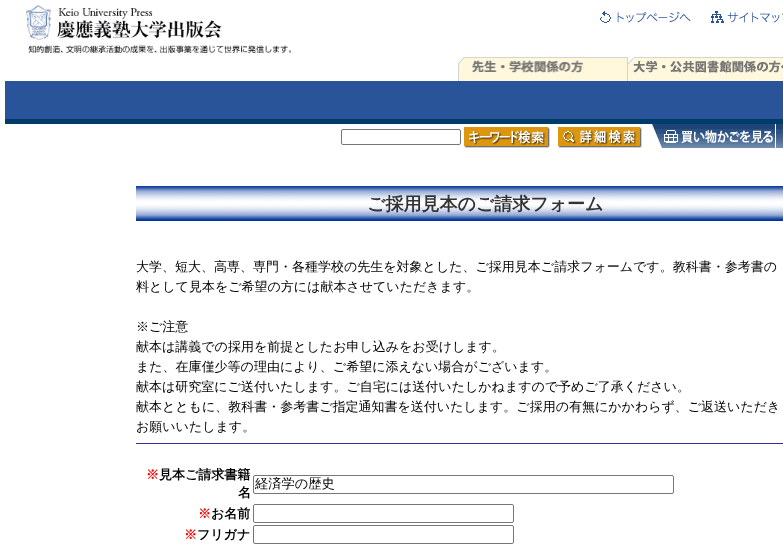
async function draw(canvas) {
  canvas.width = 783
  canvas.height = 546
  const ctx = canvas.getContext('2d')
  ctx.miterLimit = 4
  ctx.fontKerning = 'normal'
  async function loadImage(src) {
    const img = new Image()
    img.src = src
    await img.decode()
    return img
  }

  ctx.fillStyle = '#fff'
  ctx.fillRect(0, 0, 783, 546)
  ctx.drawImage(await loadImage('image0.png'), 26, 5, 265, 48)
  ctx.drawImage(await loadImage('image1.png'), 600, 11, 91, 12)
  ctx.drawImage(await loadImage('image2.png'), 711, 11, 72, 12)
  ctx.drawImage(await loadImage('image3.png'), 458, 57, 170, 18)
  ctx.drawImage(await loadImage('image4.png'), 628, 57, 155, 18)
  ctx.drawImage(await loadImage('image5.png'), 458, 75, 325, 6)
  ctx.fillStyle = '#2a549a'
  ctx.fillRect(5, 81, 778, 38)
  ctx.fillStyle = '#013b67'
  ctx.fillRect(5, 119, 778, 5)
  ctx.beginPath()
  ctx.roundRect(341.5, 129.5, 119, 15, 1.5)
  ctx.strokeStyle = '#767676'
  ctx.stroke()
  ctx.drawImage(await loadImage('image6.png'), 464, 127, 86, 21)
  ctx.drawImage(await loadImage('image7.png'), 558, 127, 84, 21)
  ctx.drawImage(await loadImage('image8.png'), 652, 124, 123, 24)
  ctx.drawImage(await loadImage('image9.png'), 776, 124, 7, 24)
  ctx.drawImage(await loadImage('image10.png'), 136, 186, 647, 35)
  ctx.font = 'bold 18px WenQuanYi Zen Hei'
  ctx.fillStyle = '#333'
  ctx.fillText('ご採用見本のご請求フォーム', 367, 210)
  ctx.font = '500 13px WenQuanYi Zen Hei'
  ctx.fillStyle = '#000'
  ctx.fillText('大学、短大、高専、専門・各種学校の先生を対象とした、ご採用見本ご請求フォームです。教科書・参考書の', 136, 271)
  ctx.fillText('料として見本をご希望の方には献本させていただきます。', 136, 291)
  ctx.fillText('※ご注意', 136, 331)
  ctx.fillText('献本は講義での採用を前提としたお申し込みをお受けします。', 136, 351)
  ctx.fillText('また、在庫僅少等の理由により、ご希望に添えない場合がございます。', 136, 371)
  ctx.fillText('献本は研究室にご送付いたします。ご自宅には送付いたしかねますので予めご了承ください。', 136, 391)
  ctx.fillText('献本とともに、教科書・参考書ご指定通知書を送付いたします。ご採用の有無にかかわらず、ご返送いただき', 136, 411)
  ctx.fillText('お願いいたします。', 136, 431)
  ctx.fillStyle = '#339'
  ctx.fillRect(136, 443, 647, 1)
  ctx.font = 'bold 13px WenQuanYi Zen Hei'
  ctx.fillStyle = '#f00'
  ctx.fillText('※', 146, 479)
  ctx.fillStyle = '#000'
  ctx.fillText('見本ご請求書籍', 159, 479)
  ctx.fillText('名', 238, 497)
  ctx.beginPath()
  ctx.roundRect(253.5, 475.5, 420, 18, 1.5)
  ctx.stroke()
  ctx.save()
  ctx.beginPath()
  ctx.rect(255, 477, 417, 15)
  ctx.clip()
  ctx.font = '500 13.25px WenQuanYi Zen Hei'
  ctx.fillText('経済学の歴史', 255, 488)
  ctx.restore()
  ctx.fillStyle = '#f00'
  ctx.fillText('※', 198, 518)
  ctx.fillStyle = '#000'
  ctx.fillText('お名前', 211, 518)
  ctx.beginPath()
  ctx.roundRect(253.5, 504.5, 260, 18, 1.5)
  ctx.stroke()
  ctx.fillStyle = '#f00'
  ctx.fillText('※', 184, 539)
  ctx.fillStyle = '#000'
  ctx.fillText('フリガナ', 197, 539)
  ctx.beginPath()
  ctx.roundRect(253.5, 525.5, 260, 18, 1.5)
  ctx.stroke()
}

draw(document.querySelector('canvas'))
